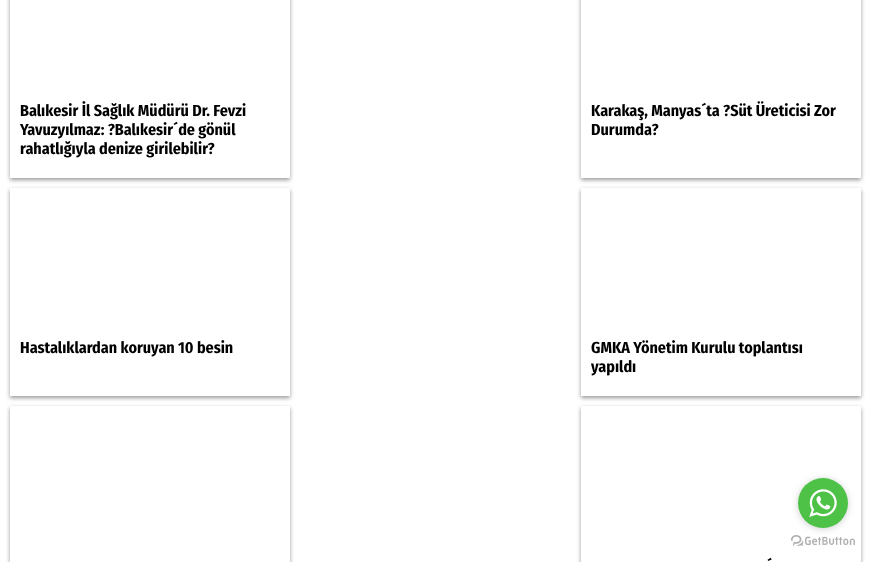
async function draw(canvas) {
  canvas.width = 871
  canvas.height = 562
  const ctx = canvas.getContext('2d')
  ctx.miterLimit = 4
  ctx.fontKerning = 'normal'
  async function loadImage(src) {
    const img = new Image()
    img.src = src
    await img.decode()
    return img
  }

  ctx.fillStyle = '#fff'
  ctx.fillRect(0, 0, 871, 562)
  ctx.save()
  ctx.beginPath()
  ctx.moveTo(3, 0)
  ctx.lineTo(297, 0)
  ctx.lineTo(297, 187)
  ctx.lineTo(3, 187)
  ctx.closePath()
  ctx.moveTo(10, -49)
  ctx.lineTo(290, -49)
  ctx.lineTo(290, 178)
  ctx.lineTo(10, 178)
  ctx.closePath()
  ctx.clip('evenodd')
  ctx.fillStyle = '#00000066'
  ctx.filter = 'blur(2px)'
  ctx.beginPath()
  ctx.rect(10, -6, 280, 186)
  ctx.fill()
  ctx.filter = 'none'
  ctx.restore()
  ctx.font = 'bold 16px Fira Sans Condensed'
  ctx.fillStyle = '#000'
  ctx.fillText('Balıkesir İl Sağlık Müdürü Dr. Fevzi', 20, 116)
  ctx.fillText('Yavuzyılmaz: ?Balıkesir´de gönül', 20, 135)
  ctx.fillText('rahatlığıyla denize girilebilir?', 20, 154)
  ctx.save()
  ctx.beginPath()
  ctx.moveTo(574, 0)
  ctx.lineTo(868, 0)
  ctx.lineTo(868, 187)
  ctx.lineTo(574, 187)
  ctx.closePath()
  ctx.moveTo(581, -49)
  ctx.lineTo(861, -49)
  ctx.lineTo(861, 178)
  ctx.lineTo(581, 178)
  ctx.closePath()
  ctx.clip('evenodd')
  ctx.fillStyle = '#00000066'
  ctx.filter = 'blur(2px)'
  ctx.beginPath()
  ctx.rect(581, -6, 280, 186)
  ctx.fill()
  ctx.filter = 'none'
  ctx.restore()
  ctx.fillText('Karakaş, Manyas´ta ?Süt Üreticisi Zor', 591, 116)
  ctx.fillText('Durumda?', 591, 135)
  ctx.save()
  ctx.beginPath()
  ctx.moveTo(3, 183)
  ctx.lineTo(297, 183)
  ctx.lineTo(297, 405)
  ctx.lineTo(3, 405)
  ctx.closePath()
  ctx.moveTo(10, 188)
  ctx.lineTo(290, 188)
  ctx.lineTo(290, 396)
  ctx.lineTo(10, 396)
  ctx.closePath()
  ctx.clip('evenodd')
  ctx.fillStyle = '#00000066'
  ctx.filter = 'blur(2px)'
  ctx.beginPath()
  ctx.rect(10, 190, 280, 208)
  ctx.fill()
  ctx.filter = 'none'
  ctx.restore()
  ctx.fillText('Hastalıklardan koruyan 10 besin', 20, 353)
  ctx.save()
  ctx.beginPath()
  ctx.moveTo(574, 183)
  ctx.lineTo(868, 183)
  ctx.lineTo(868, 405)
  ctx.lineTo(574, 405)
  ctx.closePath()
  ctx.moveTo(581, 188)
  ctx.lineTo(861, 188)
  ctx.lineTo(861, 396)
  ctx.lineTo(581, 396)
  ctx.closePath()
  ctx.clip('evenodd')
  ctx.fillStyle = '#00000066'
  ctx.filter = 'blur(2px)'
  ctx.beginPath()
  ctx.rect(581, 190, 280, 208)
  ctx.fill()
  ctx.filter = 'none'
  ctx.restore()
  ctx.fillText('GMKA Yönetim Kurulu toplantısı', 591, 353)
  ctx.fillText('yapıldı', 591, 372)
  ctx.save()
  ctx.beginPath()
  ctx.moveTo(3, 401)
  ctx.lineTo(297, 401)
  ctx.lineTo(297, 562)
  ctx.lineTo(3, 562)
  ctx.closePath()
  ctx.moveTo(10, 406)
  ctx.lineTo(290, 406)
  ctx.lineTo(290, 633)
  ctx.lineTo(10, 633)
  ctx.closePath()
  ctx.clip('evenodd')
  ctx.fillStyle = '#00000066'
  ctx.filter = 'blur(2px)'
  ctx.beginPath()
  ctx.rect(10, 408, 280, 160)
  ctx.fill()
  ctx.filter = 'none'
  ctx.restore()
  ctx.save()
  ctx.beginPath()
  ctx.moveTo(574, 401)
  ctx.lineTo(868, 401)
  ctx.lineTo(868, 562)
  ctx.lineTo(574, 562)
  ctx.closePath()
  ctx.moveTo(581, 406)
  ctx.lineTo(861, 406)
  ctx.lineTo(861, 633)
  ctx.lineTo(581, 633)
  ctx.closePath()
  ctx.clip('evenodd')
  ctx.fillStyle = '#00000066'
  ctx.filter = 'blur(2px)'
  ctx.beginPath()
  ctx.rect(581, 408, 280, 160)
  ctx.fill()
  ctx.filter = 'none'
  ctx.restore()
  ctx.fillText('´', 767, 571)
  ctx.drawImage(await loadImage('image1.png'), 791, 535, 64, 11)
  ctx.fillStyle = '#88888866'
  ctx.filter = 'blur(3.5px)'
  ctx.beginPath()
  ctx.roundRect(798, 479, 50, 50, 25)
  ctx.fill()
  ctx.filter = 'none'
  ctx.fillStyle = '#4dc247'
  ctx.beginPath()
  ctx.arc(823, 503, 25, 0, 2 * Math.PI)
  ctx.fill()
  ctx.drawImage(await loadImage('image0.png'), 809, 489, 28, 28)
}

draw(document.querySelector('canvas'))
